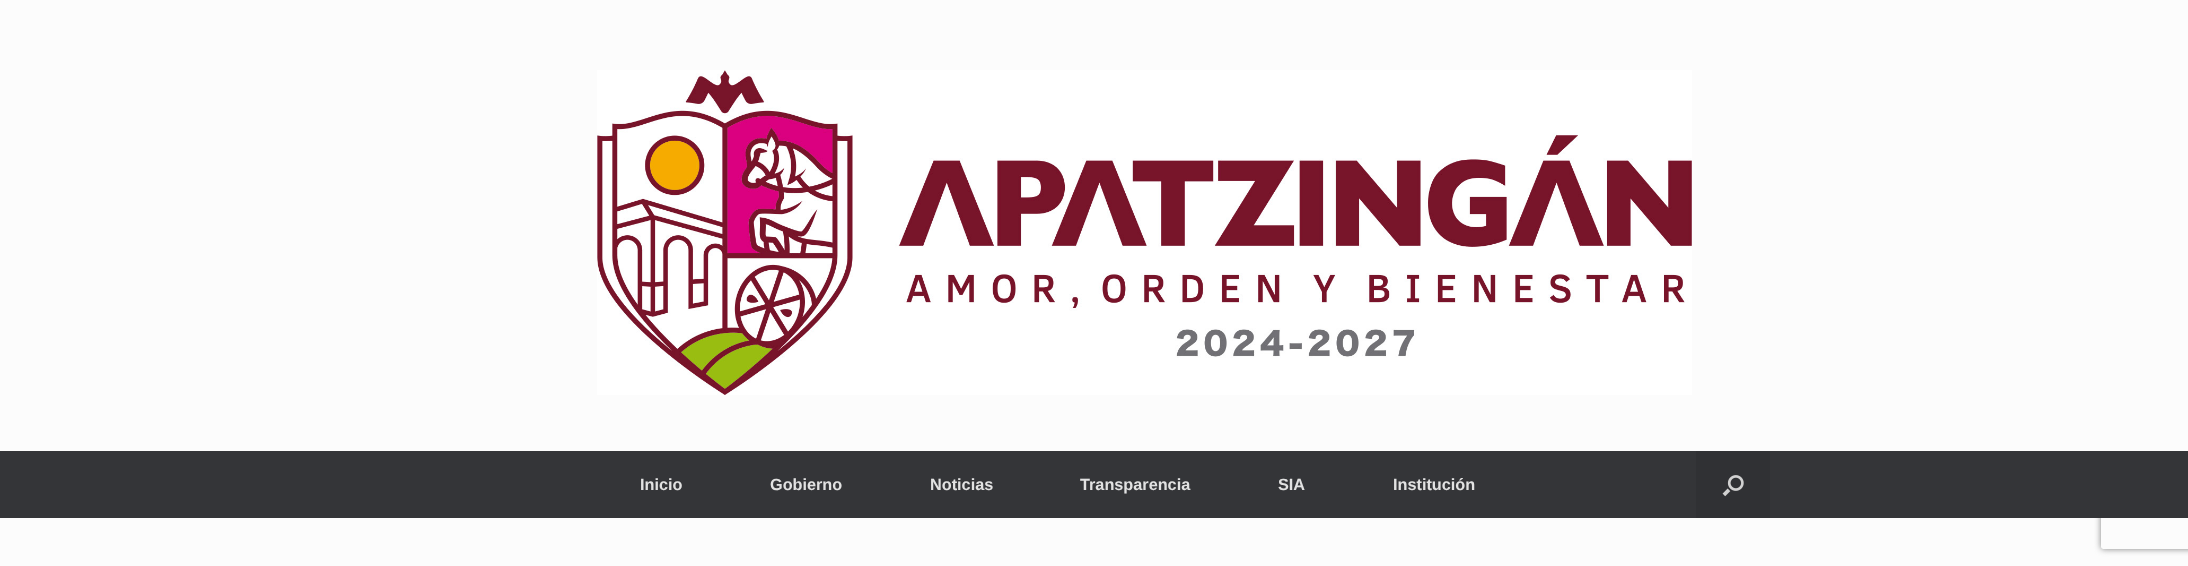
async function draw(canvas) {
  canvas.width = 2188
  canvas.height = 566
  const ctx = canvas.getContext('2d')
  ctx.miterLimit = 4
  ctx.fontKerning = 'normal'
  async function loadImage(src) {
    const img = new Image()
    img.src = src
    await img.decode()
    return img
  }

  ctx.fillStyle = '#fcfcfc'
  ctx.fillRect(0, 0, 2188, 566)
  ctx.drawImage(await loadImage('image0.png'), 597, 70, 1095, 325)
  ctx.save()
  ctx.beginPath()
  ctx.moveTo(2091, 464)
  ctx.lineTo(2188, 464)
  ctx.lineTo(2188, 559)
  ctx.lineTo(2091, 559)
  ctx.closePath()
  ctx.moveTo(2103.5, 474)
  ctx.lineTo(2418.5, 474)
  ctx.bezierCurveTo(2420, 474, 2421, 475, 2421, 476.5)
  ctx.lineTo(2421, 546.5)
  ctx.bezierCurveTo(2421, 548, 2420, 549, 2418.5, 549)
  ctx.lineTo(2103.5, 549)
  ctx.bezierCurveTo(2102, 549, 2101, 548, 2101, 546.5)
  ctx.lineTo(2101, 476.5)
  ctx.bezierCurveTo(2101, 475, 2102, 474, 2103.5, 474)
  ctx.closePath()
  ctx.clip('evenodd')
  ctx.fillStyle = '#808080'
  ctx.filter = 'blur(3px)'
  ctx.beginPath()
  ctx.roundRect(2101, 474, 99, 75, 2.5)
  ctx.fill()
  ctx.filter = 'none'
  ctx.restore()
  ctx.fillStyle = '#343538'
  ctx.fillRect(0, 451, 2188, 67)
  ctx.font = 'bold 16.25px Liberation Sans'
  ctx.fillStyle = '#e2e2e2'
  ctx.fillText('Inicio', 640, 490)
  ctx.fillText('Gobierno', 770, 490)
  ctx.fillText('Noticias', 930, 490)
  ctx.fillText('Transparencia', 1080, 490)
  ctx.fillText('SIA', 1278, 490)
  ctx.fillText('Institución', 1393, 490)
  ctx.fillStyle = '#303134'
  ctx.fillRect(1696, 451, 74, 67)
  ctx.drawImage(await loadImage('image1.png'), 1722, 475, 22, 22)
}

draw(document.querySelector('canvas'))
